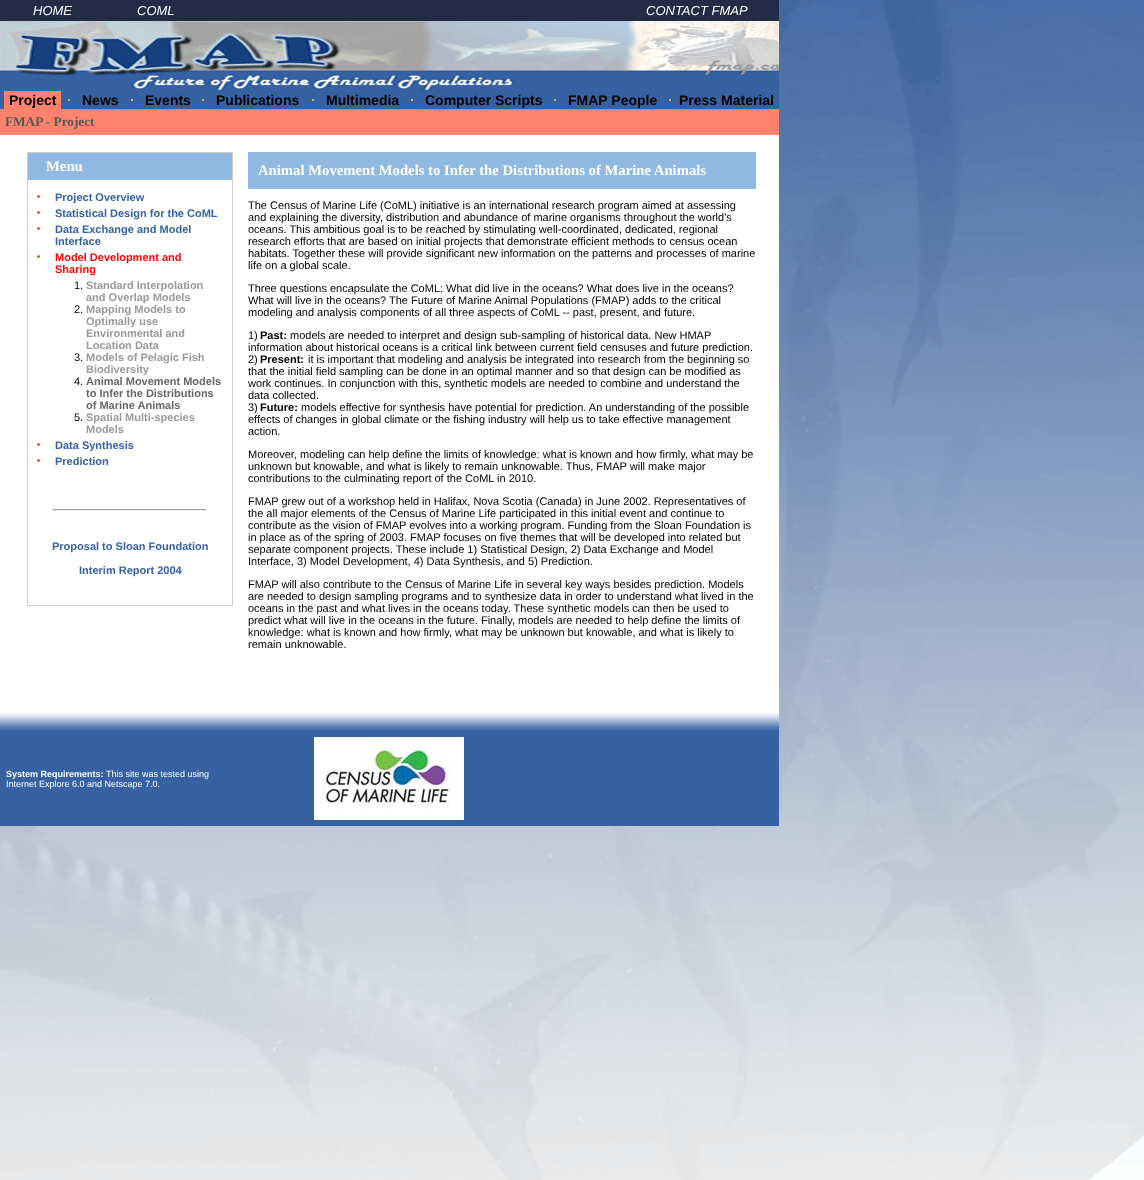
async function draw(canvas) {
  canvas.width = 1144
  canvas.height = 1180
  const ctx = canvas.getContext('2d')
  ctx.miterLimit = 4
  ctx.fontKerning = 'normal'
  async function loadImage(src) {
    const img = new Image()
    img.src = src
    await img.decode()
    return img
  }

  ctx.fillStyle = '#fff'
  ctx.fillRect(0, 0, 1144, 1180)
  ctx.drawImage(await loadImage('image0.png'), 0, 0, 1144, 1180)
  ctx.fillStyle = '#232b47'
  ctx.fillRect(0, 0, 779, 21)
  ctx.font = 'italic 13px Liberation Sans'
  ctx.fillStyle = '#fff'
  ctx.fillText('HOME', 33, 15)
  ctx.fillText('COML', 137, 15)
  ctx.fillText('CONTACT FMAP', 646, 15)
  ctx.drawImage(await loadImage('image1.png'), 0, 21, 779, 70)
  ctx.fillStyle = '#3661a2'
  ctx.fillRect(0, 91, 779, 18)
  ctx.fillStyle = '#ff826c'
  ctx.fillRect(4, 91, 57, 18)
  ctx.font = 'bold 14px Liberation Sans'
  ctx.fillStyle = '#000'
  ctx.fillText('Project', 9, 105)
  ctx.fillStyle = '#cdb174'
  ctx.fillRect(68, 99, 2, 2)
  ctx.fillStyle = '#000'
  ctx.fillText('News', 82, 105)
  ctx.fillStyle = '#cdb174'
  ctx.fillRect(131, 99, 2, 2)
  ctx.fillStyle = '#000'
  ctx.fillText('Events', 145, 105)
  ctx.fillStyle = '#cdb174'
  ctx.fillRect(202, 99, 2, 2)
  ctx.fillStyle = '#000'
  ctx.fillText('Publications', 216, 105)
  ctx.fillStyle = '#cdb174'
  ctx.fillRect(312, 99, 2, 2)
  ctx.fillStyle = '#000'
  ctx.fillText('Multimedia', 326, 105)
  ctx.fillStyle = '#cdb174'
  ctx.fillRect(411, 99, 2, 2)
  ctx.fillStyle = '#000'
  ctx.fillText('Computer Scripts', 425, 105)
  ctx.fillStyle = '#cdb174'
  ctx.fillRect(554, 99, 2, 2)
  ctx.fillStyle = '#000'
  ctx.fillText('FMAP People', 568, 105)
  ctx.fillStyle = '#cdb174'
  ctx.fillRect(669, 99, 2, 2)
  ctx.fillStyle = '#000'
  ctx.fillText('Press Material', 679, 105)
  ctx.fillStyle = '#fff'
  ctx.fillRect(0, 135, 779, 576)
  ctx.fillStyle = '#ff826c'
  ctx.fillRect(0, 109, 779, 26)
  ctx.font = 'bold 13.25px Liberation Serif'
  ctx.fillStyle = '#595959'
  ctx.fillText('FMAP - Project', 5, 126)
  ctx.fillStyle = '#ccc'
  ctx.fillRect(27, 152, 206, 454)
  ctx.fillStyle = '#fff'
  ctx.fillRect(28, 180, 204, 425)
  ctx.fillStyle = '#8fb9e1'
  ctx.fillRect(28, 153, 204, 27)
  ctx.font = 'bold 14.7px Liberation Serif'
  ctx.fillStyle = '#fff'
  ctx.fillText('Menu', 46, 171)
  ctx.fillStyle = '#df572d'
  ctx.beginPath()
  ctx.arc(38.5, 196.5, 1.5, 0, 2 * Math.PI)
  ctx.fill()
  ctx.font = 'bold 11px Liberation Sans'
  ctx.fillStyle = '#3661a2'
  ctx.fillText('Project Overview', 55, 201)
  ctx.fillStyle = '#df572d'
  ctx.beginPath()
  ctx.arc(38.5, 212.5, 1.5, 0, 2 * Math.PI)
  ctx.fill()
  ctx.fillStyle = '#3661a2'
  ctx.fillText('Statistical Design for the CoML', 55, 217)
  ctx.fillStyle = '#df572d'
  ctx.beginPath()
  ctx.arc(38.5, 228.5, 1.5, 0, 2 * Math.PI)
  ctx.fill()
  ctx.fillStyle = '#3661a2'
  ctx.fillText('Data Exchange and Model', 55, 233)
  ctx.fillText('Interface', 55, 245)
  ctx.fillStyle = '#df572d'
  ctx.beginPath()
  ctx.arc(38.5, 256.5, 1.5, 0, 2 * Math.PI)
  ctx.fill()
  ctx.fillStyle = '#f00'
  ctx.fillText('Model Development and', 55, 261)
  ctx.fillText('Sharing', 55, 273)
  ctx.font = '11px Liberation Sans'
  ctx.fillStyle = '#000'
  ctx.fillText('1.', 74, 289)
  ctx.font = 'bold 11px Liberation Sans'
  ctx.fillStyle = '#999'
  ctx.fillText('Standard Interpolation', 86, 289)
  ctx.fillText('and Overlap Models', 86, 301)
  ctx.font = '11px Liberation Sans'
  ctx.fillStyle = '#000'
  ctx.fillText('2.', 74, 313)
  ctx.font = 'bold 11px Liberation Sans'
  ctx.fillStyle = '#999'
  ctx.fillText('Mapping Models to', 86, 313)
  ctx.fillText('Optimally use', 86, 325)
  ctx.fillText('Environmental and', 86, 337)
  ctx.fillText('Location Data', 86, 349)
  ctx.font = '11px Liberation Sans'
  ctx.fillStyle = '#000'
  ctx.fillText('3.', 74, 361)
  ctx.font = 'bold 11px Liberation Sans'
  ctx.fillStyle = '#999'
  ctx.fillText('Models of Pelagic Fish', 86, 361)
  ctx.fillText('Biodiversity', 86, 373)
  ctx.font = '11px Liberation Sans'
  ctx.fillStyle = '#000'
  ctx.fillText('4.', 74, 385)
  ctx.font = 'bold 11px Liberation Sans'
  ctx.fillStyle = '#666'
  ctx.fillText('Animal Movement Models', 86, 385)
  ctx.fillText('to Infer the Distributions', 86, 397)
  ctx.fillText('of Marine Animals', 86, 409)
  ctx.font = '11px Liberation Sans'
  ctx.fillStyle = '#000'
  ctx.fillText('5.', 74, 421)
  ctx.font = 'bold 11px Liberation Sans'
  ctx.fillStyle = '#999'
  ctx.fillText('Spatial Multi-species', 86, 421)
  ctx.fillText('Models', 86, 433)
  ctx.fillStyle = '#df572d'
  ctx.beginPath()
  ctx.arc(38.5, 444.5, 1.5, 0, 2 * Math.PI)
  ctx.fill()
  ctx.fillStyle = '#3661a2'
  ctx.fillText('Data Synthesis', 55, 449)
  ctx.fillStyle = '#df572d'
  ctx.beginPath()
  ctx.arc(38.5, 460.5, 1.5, 0, 2 * Math.PI)
  ctx.fill()
  ctx.fillStyle = '#3661a2'
  ctx.fillText('Prediction', 55, 465)
  ctx.fillStyle = '#9f9f9f'
  ctx.fillRect(53, 509, 154, 1)
  ctx.fillStyle = '#eee'
  ctx.fillRect(206, 509, 1, 2)
  ctx.fillRect(53, 510, 154, 1)
  ctx.fillStyle = '#9f9f9f'
  ctx.fillRect(53, 509, 1, 2)
  ctx.fillStyle = '#3661a2'
  ctx.fillText('Proposal to Sloan Foundation', 52, 550)
  ctx.fillText('Interim Report 2004', 79, 574)
  ctx.fillStyle = '#8fb9e1'
  ctx.fillRect(248, 152, 508, 37)
  ctx.font = 'bold 14.7px Liberation Serif'
  ctx.fillStyle = '#fff'
  ctx.fillText('Animal Movement Models to Infer the Distributions of Marine Animals', 258, 175)
  ctx.font = '11px Liberation Sans'
  ctx.fillStyle = '#000'
  ctx.fillText('The Census of Marine Life (CoML) initiative is an international research program aimed at assessing', 248, 209)
  ctx.fillText('and explaining the diversity, distribution and abundance of marine organisms throughout the world\'s', 248, 221)
  ctx.fillText('oceans. This ambitious goal is to be reached by stimulating well-coordinated, dedicated, regional', 248, 233)
  ctx.fillText('research efforts that are based on initial projects that demonstrate efficient methods to census ocean', 248, 245)
  ctx.fillText('habitats. Together these will provide significant new information on the patterns and processes of marine', 248, 257)
  ctx.fillText('life on a global scale.', 248, 269)
  ctx.fillText('Three questions encapsulate the CoML: What did live in the oceans? What does live in the oceans?', 248, 292)
  ctx.fillText('What will live in the oceans? The Future of Marine Animal Populations (FMAP) adds to the critical', 248, 304)
  ctx.fillText('modeling and analysis components of all three aspects of CoML -- past, present, and future.', 248, 316)
  ctx.fillText('1)', 248, 339)
  ctx.font = 'bold 11px Liberation Sans'
  ctx.fillText('Past:', 260, 339)
  ctx.font = '11px Liberation Sans'
  ctx.fillText('models are needed to interpret and design sub-sampling of historical data. New HMAP', 290, 339)
  ctx.fillText('information about historical oceans is a critical link between current field censuses and future prediction.', 248, 351)
  ctx.fillText('2)', 248, 363)
  ctx.font = 'bold 11px Liberation Sans'
  ctx.fillText('Present:', 260, 363)
  ctx.font = '11px Liberation Sans'
  ctx.fillText('it is important that modeling and analysis be integrated into research from the beginning so', 308, 363)
  ctx.fillText('that the initial field sampling can be done in an optimal manner and so that design can be modified as', 248, 375)
  ctx.fillText('work continues. In conjunction with this, synthetic models are needed to combine and understand the', 248, 387)
  ctx.fillText('data collected.', 248, 399)
  ctx.fillText('3)', 248, 411)
  ctx.font = 'bold 11px Liberation Sans'
  ctx.fillText('Future:', 260, 411)
  ctx.font = '11px Liberation Sans'
  ctx.fillText('models effective for synthesis have potential for prediction. An understanding of the possible', 301, 411)
  ctx.fillText('effects of changes in global climate or the fishing industry will help us to take effective management', 248, 423)
  ctx.fillText('action.', 248, 435)
  ctx.fillText('Moreover, modeling can help define the limits of knowledge: what is known and how firmly, what may be', 248, 458)
  ctx.fillText('unknown but knowable, and what is likely to remain unknowable. Thus, FMAP will make major', 248, 470)
  ctx.fillText('contributions to the culminating report of the CoML in 2010.', 248, 482)
  ctx.fillText('FMAP grew out of a workshop held in Halifax, Nova Scotia (Canada) in June 2002. Representatives of', 248, 505)
  ctx.fillText('the all major elements of the Census of Marine Life participated in this initial event and continue to', 248, 517)
  ctx.fillText('contribute as the vision of FMAP evolves into a working program. Funding from the Sloan Foundation is', 248, 529)
  ctx.fillText('in place as of the spring of 2003. FMAP focuses on five themes that will be developed into related but', 248, 541)
  ctx.fillText('separate component projects. These include 1) Statistical Design, 2) Data Exchange and Model', 248, 553)
  ctx.fillText('Interface, 3) Model Development, 4) Data Synthesis, and 5) Prediction.', 248, 565)
  ctx.fillText('FMAP will also contribute to the Census of Marine Life in several key ways besides prediction. Models', 248, 588)
  ctx.fillText('are needed to design sampling programs and to synthesize data in order to understand what lived in the', 248, 600)
  ctx.fillText('oceans in the past and what lives in the oceans today. These synthetic models can then be used to', 248, 612)
  ctx.fillText('predict what will live in the oceans in the future. Finally, models are needed to help define the limits of', 248, 624)
  ctx.fillText('knowledge: what is known and how firmly, what may be unknown but knowable, and what is likely to', 248, 636)
  ctx.fillText('remain unknowable.', 248, 648)
  ctx.fillStyle = '#3661a2'
  ctx.fillRect(0, 731, 779, 95)
  ctx.drawImage(await loadImage('image2.png'), 0, 711, 779, 20)
  ctx.font = 'bold 9px Liberation Sans'
  ctx.fillStyle = '#fff'
  ctx.fillText('System Requirements:', 6, 777)
  ctx.font = '9px Liberation Sans'
  ctx.fillText('This site was tested using', 106, 777)
  ctx.fillText('Internet Explore 6.0 and Netscape 7.0.', 6, 787)
  ctx.drawImage(await loadImage('image3.png'), 314, 737, 150, 83)
}

draw(document.querySelector('canvas'))
